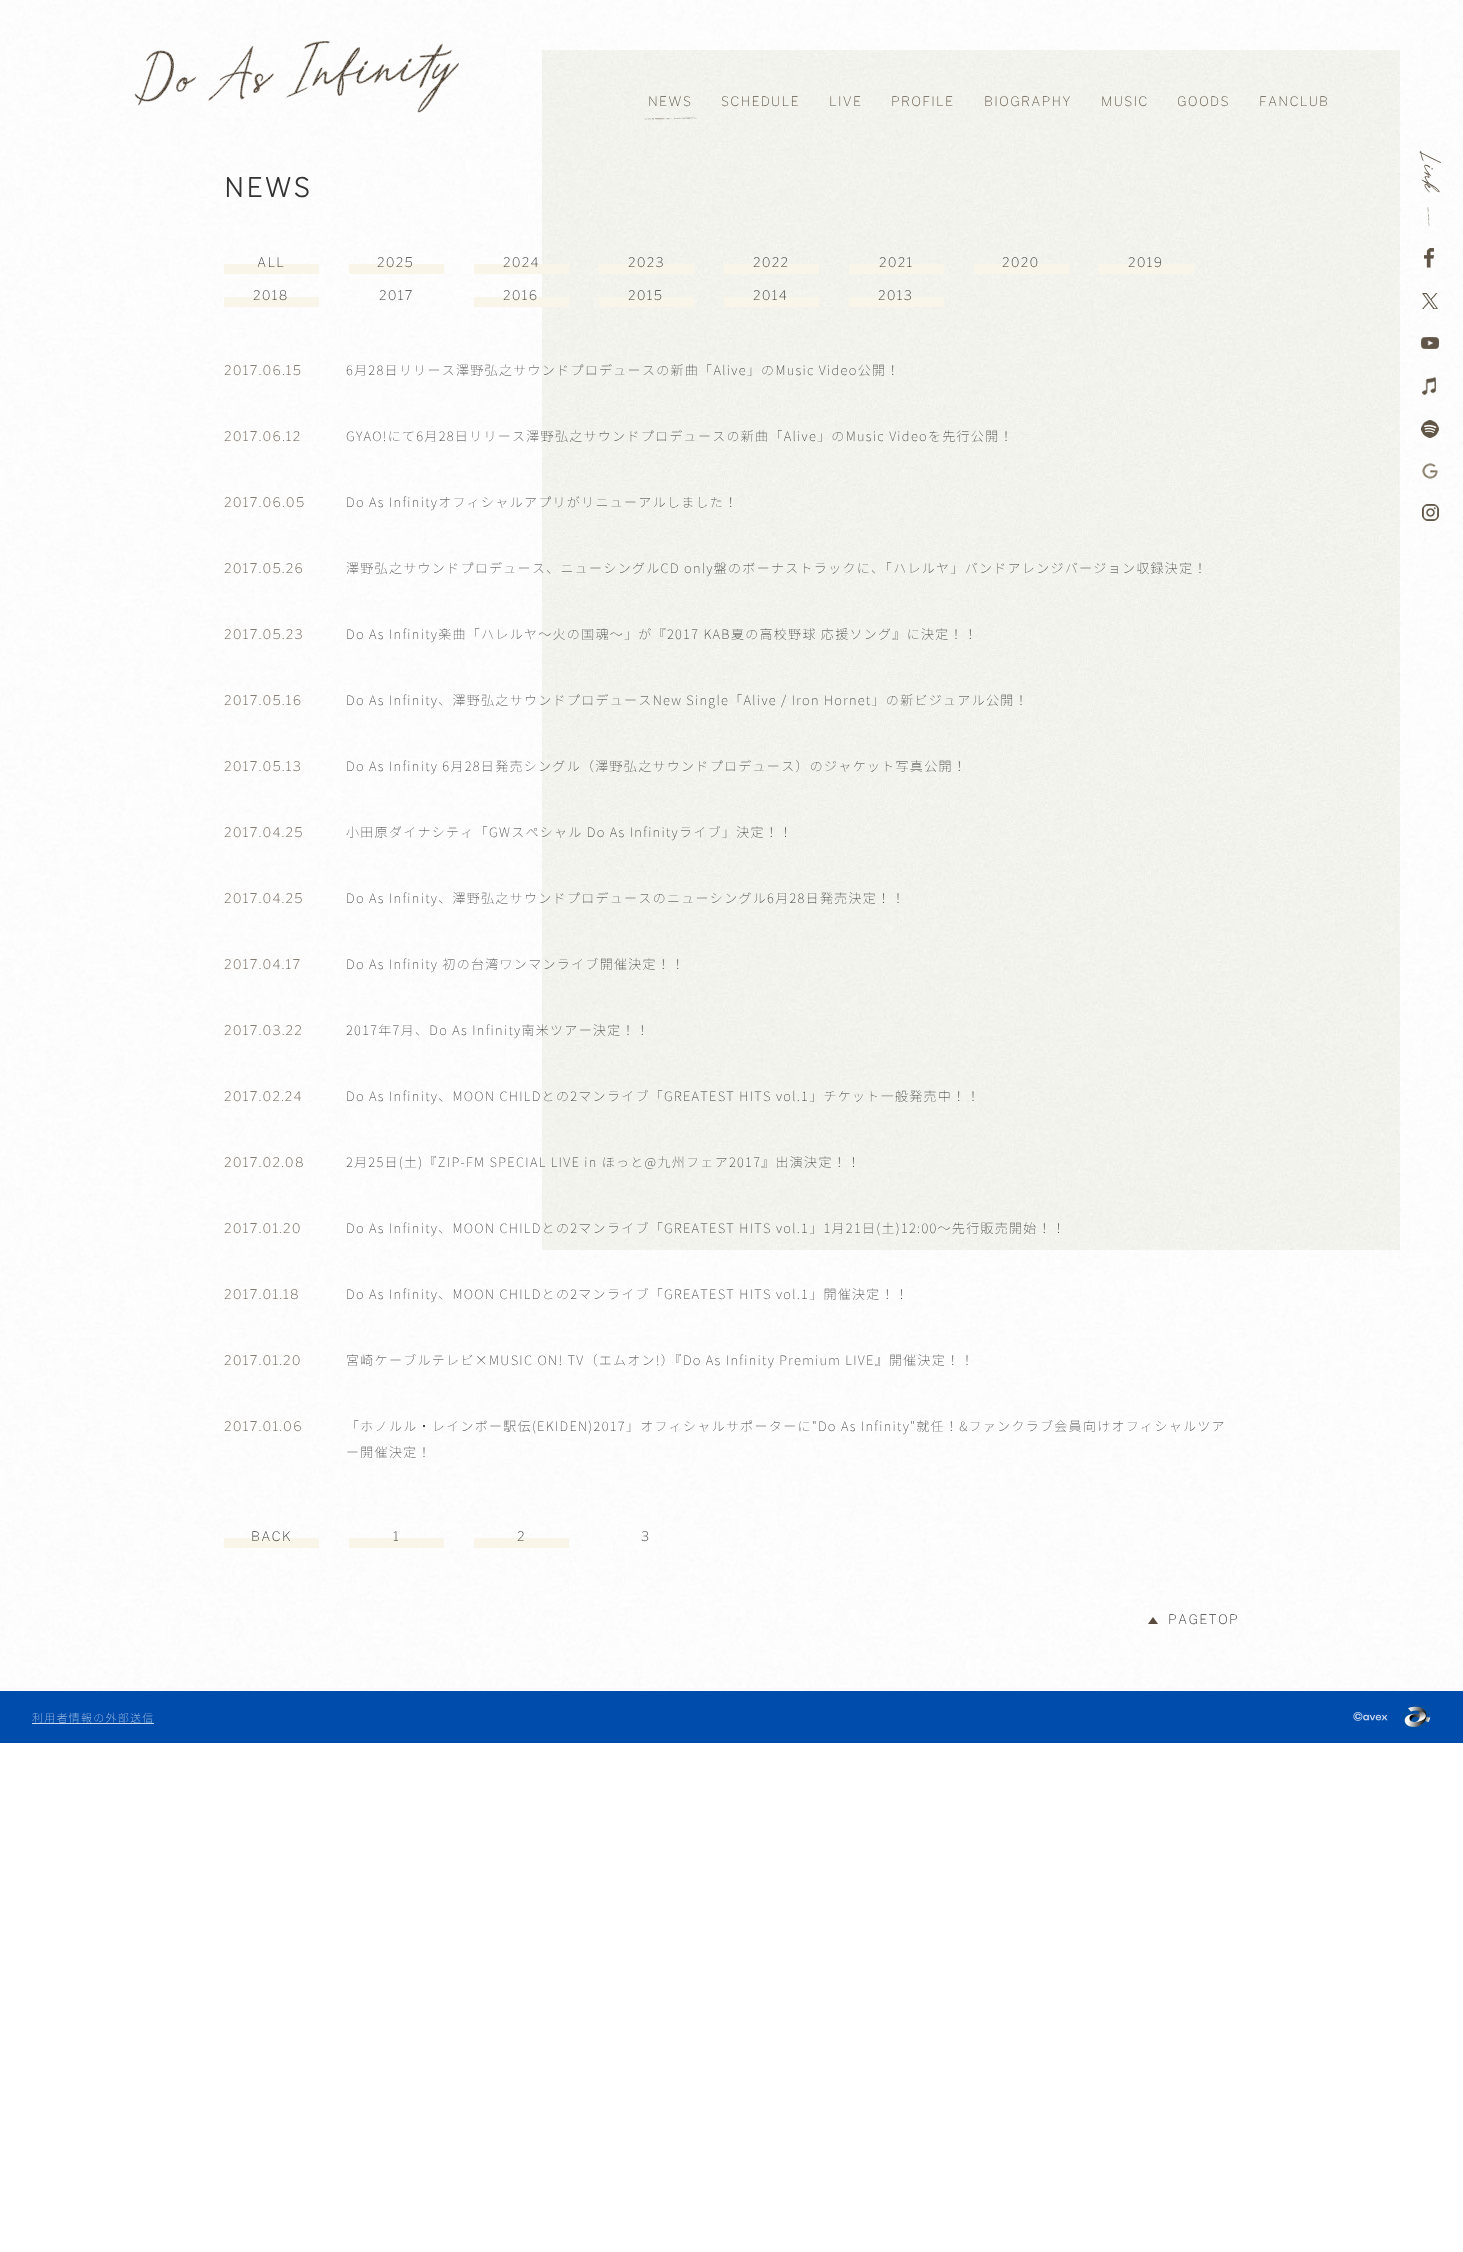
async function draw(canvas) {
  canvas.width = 1463
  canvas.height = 2252
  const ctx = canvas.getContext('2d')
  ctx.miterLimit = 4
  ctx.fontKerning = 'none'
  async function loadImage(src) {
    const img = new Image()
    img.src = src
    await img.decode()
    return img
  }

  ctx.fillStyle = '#fff'
  ctx.fillRect(0, 0, 1463, 2252)
  ctx.drawImage(await loadImage('image0.png'), 0, 0, 1463, 1691)
  ctx.drawImage(await loadImage('image1.png'), 134, 41, 325, 72)
  ctx.drawImage(await loadImage('image2.png'), 1419, 150, 22, 76)
  ctx.drawImage(await loadImage('image3.png'), 1424, 248, 10, 20)
  ctx.drawImage(await loadImage('image4.png'), 1422, 293, 16, 16)
  ctx.drawImage(await loadImage('image5.png'), 1421, 337, 18, 12)
  ctx.drawImage(await loadImage('image6.png'), 1422, 377, 14, 18)
  ctx.drawImage(await loadImage('image7.png'), 1421, 420, 18, 18)
  ctx.drawImage(await loadImage('image8.png'), 1422, 463, 16, 16)
  ctx.drawImage(await loadImage('image9.png'), 1422, 504, 17, 17)
  ctx.drawImage(await loadImage('image10.png'), 542, 50, 858, 1200)
  ctx.letterSpacing = '1.3px'
  ctx.font = '100 13px Libre Franklin'
  ctx.fillStyle = '#605546'
  ctx.fillText('NEWS', 648, 106)
  ctx.drawImage(await loadImage('image11.png'), 644, 117, 53, 3)
  ctx.fillText('SCHEDULE', 721, 106)
  ctx.fillText('LIVE', 829, 106)
  ctx.fillText('PROFILE', 891, 106)
  ctx.fillText('BIOGRAPHY', 984, 106)
  ctx.fillText('MUSIC', 1101, 106)
  ctx.fillText('GOODS', 1177, 106)
  ctx.fillText('FANCLUB', 1259, 106)
  ctx.letterSpacing = '2.5px'
  ctx.font = 'bold 26px Libre Franklin'
  ctx.fillStyle = '#333'
  ctx.fillText('NEWS', 224, 197)
  ctx.fillStyle = '#f9f6e9'
  ctx.fillRect(224, 264, 95, 10)
  ctx.letterSpacing = '1.3px'
  ctx.font = '100 13px Libre Franklin'
  ctx.fillStyle = '#333'
  ctx.fillText('ALL', 257, 267)
  ctx.fillStyle = '#f9f6e9'
  ctx.fillRect(349, 264, 95, 10)
  ctx.fillStyle = '#333'
  ctx.fillText('2025', 377, 267)
  ctx.fillStyle = '#f9f6e9'
  ctx.fillRect(474, 264, 95, 10)
  ctx.fillStyle = '#333'
  ctx.fillText('2024', 503, 267)
  ctx.fillStyle = '#f9f6e9'
  ctx.fillRect(599, 264, 95, 10)
  ctx.fillStyle = '#333'
  ctx.fillText('2023', 628, 267)
  ctx.fillStyle = '#f9f6e9'
  ctx.fillRect(724, 264, 95, 10)
  ctx.fillStyle = '#333'
  ctx.fillText('2022', 753, 267)
  ctx.fillStyle = '#f9f6e9'
  ctx.fillRect(849, 264, 95, 10)
  ctx.fillStyle = '#333'
  ctx.fillText('2021', 879, 267)
  ctx.fillStyle = '#f9f6e9'
  ctx.fillRect(974, 264, 95, 10)
  ctx.fillStyle = '#333'
  ctx.fillText('2020', 1002, 267)
  ctx.fillStyle = '#f9f6e9'
  ctx.fillRect(1099, 264, 95, 10)
  ctx.fillStyle = '#333'
  ctx.fillText('2019', 1128, 267)
  ctx.fillStyle = '#f9f6e9'
  ctx.fillRect(224, 297, 95, 10)
  ctx.fillStyle = '#333'
  ctx.fillText('2018', 253, 300)
  ctx.fillText('2017', 379, 300)
  ctx.fillStyle = '#f9f6e9'
  ctx.fillRect(474, 297, 95, 10)
  ctx.fillStyle = '#333'
  ctx.fillText('2016', 503, 300)
  ctx.fillStyle = '#f9f6e9'
  ctx.fillRect(599, 297, 95, 10)
  ctx.fillStyle = '#333'
  ctx.fillText('2015', 628, 300)
  ctx.fillStyle = '#f9f6e9'
  ctx.fillRect(724, 297, 95, 10)
  ctx.fillStyle = '#333'
  ctx.fillText('2014', 753, 300)
  ctx.fillStyle = '#f9f6e9'
  ctx.fillRect(849, 297, 95, 10)
  ctx.fillStyle = '#333'
  ctx.fillText('2013', 878, 300)
  ctx.fillStyle = '#605546'
  ctx.fillText('2017.06.15', 224, 375)
  ctx.font = '100 13px Noto Sans JP'
  ctx.fillStyle = '#333'
  ctx.fillText('6月28日リリース澤野弘之サウンドプロデュースの新曲「Alive」のMusic Video公開！', 346, 375)
  ctx.font = '100 13px Libre Franklin'
  ctx.fillStyle = '#605546'
  ctx.fillText('2017.06.12', 224, 441)
  ctx.font = '100 13px Noto Sans JP'
  ctx.fillStyle = '#333'
  ctx.fillText('GYAO!にて6月28日リリース澤野弘之サウンドプロデュースの新曲「Alive」のMusic Videoを先行公開！', 346, 441)
  ctx.font = '100 13px Libre Franklin'
  ctx.fillStyle = '#605546'
  ctx.fillText('2017.06.05', 224, 507)
  ctx.font = '100 13px Noto Sans JP'
  ctx.fillStyle = '#333'
  ctx.fillText('Do As Infinityオフィシャルアプリがリニューアルしました！', 346, 507)
  ctx.font = '100 13px Libre Franklin'
  ctx.fillStyle = '#605546'
  ctx.fillText('2017.05.26', 224, 573)
  ctx.font = '100 13px Noto Sans JP'
  ctx.fillStyle = '#333'
  ctx.fillText('澤野弘之サウンドプロデュース、ニューシングルCD only盤のボーナストラックに、「ハレルヤ」バンドアレンジバージョン収録決定！', 346, 573)
  ctx.font = '100 13px Libre Franklin'
  ctx.fillStyle = '#605546'
  ctx.fillText('2017.05.23', 224, 639)
  ctx.font = '100 13px Noto Sans JP'
  ctx.fillStyle = '#333'
  ctx.fillText('Do As Infinity楽曲「ハレルヤ～火の国魂～」が『2017 KAB夏の高校野球 応援ソング』に決定！！', 346, 639)
  ctx.font = '100 13px Libre Franklin'
  ctx.fillStyle = '#605546'
  ctx.fillText('2017.05.16', 224, 705)
  ctx.font = '100 13px Noto Sans JP'
  ctx.fillStyle = '#333'
  ctx.fillText('Do As Infinity、澤野弘之サウンドプロデュースNew Single「Alive / Iron Hornet」の新ビジュアル公開！', 346, 705)
  ctx.font = '100 13px Libre Franklin'
  ctx.fillStyle = '#605546'
  ctx.fillText('2017.05.13', 224, 771)
  ctx.font = '100 13px Noto Sans JP'
  ctx.fillStyle = '#333'
  ctx.fillText('Do As Infinity 6月28日発売シングル（澤野弘之サウンドプロデュース）のジャケット写真公開！', 346, 771)
  ctx.font = '100 13px Libre Franklin'
  ctx.fillStyle = '#605546'
  ctx.fillText('2017.04.25', 224, 837)
  ctx.font = '100 13px Noto Sans JP'
  ctx.fillStyle = '#333'
  ctx.fillText('小田原ダイナシティ「GWスペシャル Do As Infinityライブ」決定！！', 346, 837)
  ctx.font = '100 13px Libre Franklin'
  ctx.fillStyle = '#605546'
  ctx.fillText('2017.04.25', 224, 903)
  ctx.font = '100 13px Noto Sans JP'
  ctx.fillStyle = '#333'
  ctx.fillText('Do As Infinity、澤野弘之サウンドプロデュースのニューシングル6月28日発売決定！！', 346, 903)
  ctx.font = '100 13px Libre Franklin'
  ctx.fillStyle = '#605546'
  ctx.fillText('2017.04.17', 224, 969)
  ctx.font = '100 13px Noto Sans JP'
  ctx.fillStyle = '#333'
  ctx.fillText('Do As Infinity 初の台湾ワンマンライブ開催決定！！', 346, 969)
  ctx.font = '100 13px Libre Franklin'
  ctx.fillStyle = '#605546'
  ctx.fillText('2017.03.22', 224, 1035)
  ctx.font = '100 13px Noto Sans JP'
  ctx.fillStyle = '#333'
  ctx.fillText('2017年7月、Do As Infinity南米ツアー決定！！', 346, 1035)
  ctx.font = '100 13px Libre Franklin'
  ctx.fillStyle = '#605546'
  ctx.fillText('2017.02.24', 224, 1101)
  ctx.font = '100 13px Noto Sans JP'
  ctx.fillStyle = '#333'
  ctx.fillText('Do As Infinity、MOON CHILDとの2マンライブ「GREATEST HITS vol.1」チケット一般発売中！！', 346, 1101)
  ctx.font = '100 13px Libre Franklin'
  ctx.fillStyle = '#605546'
  ctx.fillText('2017.02.08', 224, 1167)
  ctx.font = '100 13px Noto Sans JP'
  ctx.fillStyle = '#333'
  ctx.fillText('2月25日(土)『ZIP-FM SPECIAL LIVE in ほっと@九州フェア2017』出演決定！！', 346, 1167)
  ctx.font = '100 13px Libre Franklin'
  ctx.fillStyle = '#605546'
  ctx.fillText('2017.01.20', 224, 1233)
  ctx.font = '100 13px Noto Sans JP'
  ctx.fillStyle = '#333'
  ctx.fillText('Do As Infinity、MOON CHILDとの2マンライブ「GREATEST HITS vol.1」1月21日(土)12:00～先行販売開始！！', 346, 1233)
  ctx.font = '100 13px Libre Franklin'
  ctx.fillStyle = '#605546'
  ctx.fillText('2017.01.18', 224, 1299)
  ctx.font = '100 13px Noto Sans JP'
  ctx.fillStyle = '#333'
  ctx.fillText('Do As Infinity、MOON CHILDとの2マンライブ「GREATEST HITS vol.1」開催決定！！', 346, 1299)
  ctx.font = '100 13px Libre Franklin'
  ctx.fillStyle = '#605546'
  ctx.fillText('2017.01.20', 224, 1365)
  ctx.font = '100 13px Noto Sans JP'
  ctx.fillStyle = '#333'
  ctx.fillText('宮崎ケーブルテレビ×MUSIC ON! TV（エムオン!）『Do As Infinity Premium LIVE』開催決定！！', 346, 1365)
  ctx.font = '100 13px Libre Franklin'
  ctx.fillStyle = '#605546'
  ctx.fillText('2017.01.06', 224, 1431)
  ctx.font = '100 13px Noto Sans JP'
  ctx.fillStyle = '#333'
  ctx.fillText('「ホノルル・レインボー駅伝(EKIDEN)2017」オフィシャルサポーターに"Do As Infinity"就任！&ファンクラブ会員向けオフィシャルツア', 346, 1431)
  ctx.fillText('ー開催決定！', 346, 1457)
  ctx.fillStyle = '#f9f6e9'
  ctx.fillRect(224, 1538, 95, 10)
  ctx.font = '100 13px Libre Franklin'
  ctx.fillStyle = '#333'
  ctx.fillText('BACK', 251, 1541)
  ctx.fillStyle = '#f9f6e9'
  ctx.fillRect(349, 1538, 95, 10)
  ctx.fillStyle = '#333'
  ctx.fillText('1', 393, 1541)
  ctx.fillStyle = '#f9f6e9'
  ctx.fillRect(474, 1538, 95, 10)
  ctx.fillStyle = '#333'
  ctx.fillText('2', 517, 1541)
  ctx.fillText('3', 641, 1541)
  ctx.fillStyle = '#594b3d'
  ctx.beginPath()
  ctx.moveTo(1158, 1624)
  ctx.lineTo(1148, 1624)
  ctx.lineTo(1153, 1617)
  ctx.closePath()
  ctx.fill()
  ctx.fillStyle = '#333'
  ctx.fillText('PAGETOP', 1168, 1624)
  ctx.fillStyle = '#004cad'
  ctx.fillRect(0, 1691, 1463, 52)
  ctx.letterSpacing = '1.25px'
  ctx.font = '100 11px Noto Sans JP'
  ctx.fillStyle = '#ccdbef'
  ctx.fillText('利用者情報の外部送信', 32, 1722)
  ctx.fillRect(32, 1723, 122, 1)
  ctx.drawImage(await loadImage('image12.png'), 1353, 1712, 35, 9)
  ctx.drawImage(await loadImage('image13.png'), 1401, 1704, 30, 26)
}

draw(document.querySelector('canvas'))
